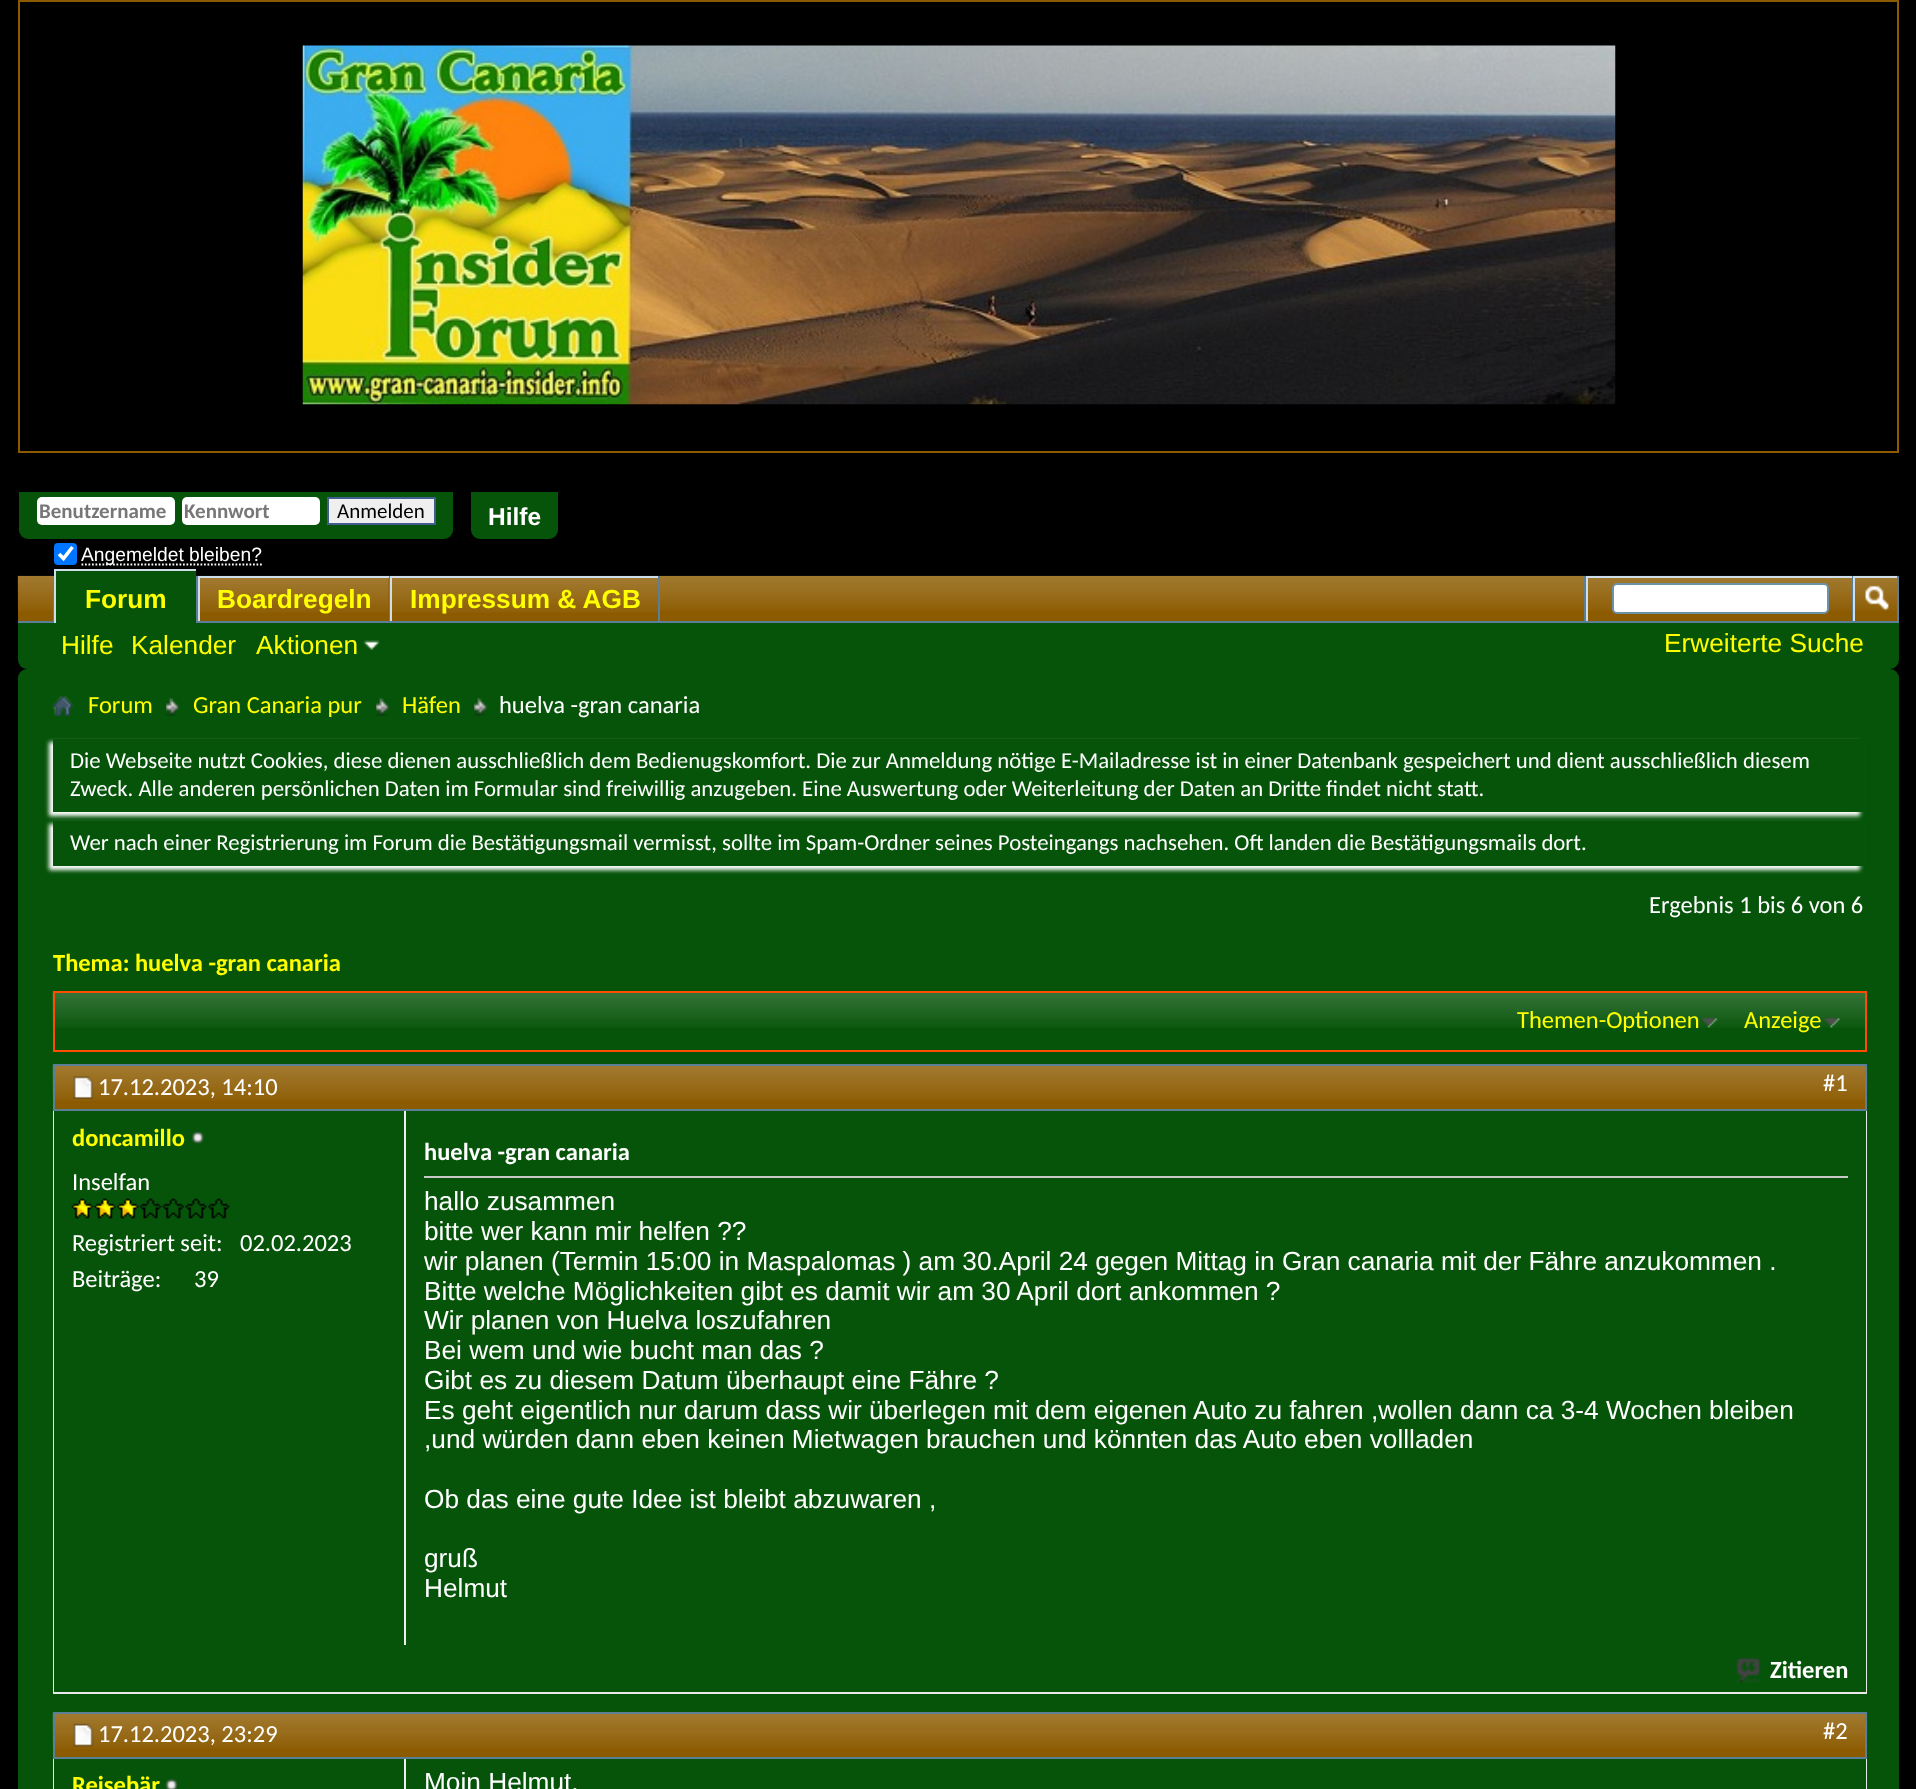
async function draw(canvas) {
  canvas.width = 1916
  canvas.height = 1789
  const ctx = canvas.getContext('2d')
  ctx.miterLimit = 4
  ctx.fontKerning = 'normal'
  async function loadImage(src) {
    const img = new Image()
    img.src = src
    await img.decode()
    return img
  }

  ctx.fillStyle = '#000'
  ctx.fillRect(0, 0, 1916, 1789)
  ctx.strokeStyle = '#8c5b00'
  ctx.lineWidth = 2
  ctx.strokeRect(19, 1, 1879, 451)
  ctx.drawImage(await loadImage('image0.png'), 302, 45, 1314, 360)
  ctx.fillStyle = '#06540a'
  ctx.beginPath()
  ctx.roundRect(19, 492, 434, 47, [0, 0, 9, 9])
  ctx.fill()
  ctx.fillStyle = '#fff'
  ctx.beginPath()
  ctx.roundRect(37, 497, 138, 28, 5)
  ctx.fill()
  ctx.font = 'bold 21px Carlito'
  ctx.fillStyle = '#777'
  ctx.fillText('Benutzername', 39, 518)
  ctx.fillStyle = '#fff'
  ctx.beginPath()
  ctx.roundRect(182, 497, 138, 28, 5)
  ctx.fill()
  ctx.fillStyle = '#777'
  ctx.fillText('Kennwort', 184, 518)
  ctx.fillStyle = '#efefef'
  ctx.beginPath()
  ctx.rect(328, 498, 107, 26)
  ctx.fill()
  ctx.strokeStyle = '#415d8d'
  ctx.stroke()
  ctx.font = '21px Carlito'
  ctx.fillStyle = '#000'
  ctx.fillText('Anmelden', 337, 518)
  ctx.fillStyle = '#0075ff'
  ctx.beginPath()
  ctx.roundRect(54, 543, 23, 22, 4)
  ctx.fill()
  ctx.beginPath()
  ctx.moveTo(59, 554)
  ctx.lineTo(63.5, 558.5)
  ctx.lineTo(72.5, 547)
  ctx.strokeStyle = '#fff'
  ctx.lineWidth = 3.6
  ctx.stroke()
  ctx.beginPath()
  ctx.moveTo(81.5, 564.5)
  ctx.lineTo(262, 564.5)
  ctx.lineWidth = 1.8
  ctx.setLineDash([1.75, 1.75])
  ctx.stroke()
  ctx.font = '19.25px Liberation Sans'
  ctx.fillStyle = '#fff'
  ctx.fillText('Angemeldet bleiben?', 81, 561)
  ctx.fillStyle = '#06540a'
  ctx.beginPath()
  ctx.roundRect(471, 492, 87, 47, [0, 0, 9, 9])
  ctx.fill()
  ctx.font = 'bold 24.5px Liberation Sans'
  ctx.fillStyle = '#fff'
  ctx.fillText('Hilfe', 488, 525)
  ctx.fillStyle = '#06540a'
  ctx.beginPath()
  ctx.roundRect(18, 576, 1881, 93, [0, 0, 9, 9])
  ctx.fill()
  ctx.fillStyle = '#8c5b00'
  ctx.fillRect(18, 576, 1879, 45)
  ctx.drawImage(await loadImage('image1.png'), 17, 575, 1882, 36)
  ctx.fillStyle = '#5a7f97'
  ctx.fillRect(196, 576, 2, 45)
  ctx.fillRect(53, 576, 1, 45)
  ctx.fillRect(389, 576, 1, 47)
  ctx.fillStyle = '#8c5b00'
  ctx.fillRect(200, 578, 189, 33)
  ctx.drawImage(await loadImage('image2.png'), 197, 577, 192, 36)
  ctx.fillStyle = '#cedfeb'
  ctx.fillRect(198, 576, 191, 2)
  ctx.fillRect(198, 576, 2, 47)
  ctx.fillStyle = '#5a7f97'
  ctx.fillRect(658, 576, 2, 47)
  ctx.fillStyle = '#cedfeb'
  ctx.fillRect(390, 576, 268, 2)
  ctx.fillRect(390, 576, 2, 47)
  ctx.fillStyle = '#5a7f97'
  ctx.fillRect(18, 621, 1881, 2)
  ctx.fillStyle = '#06540a'
  ctx.fillRect(56, 571, 140, 52)
  ctx.fillStyle = '#cedfeb'
  ctx.fillRect(54, 569, 142, 2)
  ctx.fillRect(54, 569, 2, 54)
  ctx.font = 'bold 26.25px Liberation Sans'
  ctx.fillStyle = '#ff0'
  ctx.fillText('Forum', 85, 608)
  ctx.fillText('Boardregeln', 217, 608)
  ctx.fillStyle = '#8c5b00'
  ctx.fillRect(392, 578, 266, 33)
  ctx.drawImage(await loadImage('image3.png'), 392, 578, 266, 35)
  ctx.fillStyle = '#ff0'
  ctx.fillText('Impressum & AGB', 410, 608)
  ctx.font = '26.25px Liberation Sans'
  ctx.fillText('Hilfe', 61, 654)
  ctx.fillText('Kalender', 131, 654)
  ctx.fillText('Aktionen', 256, 654)
  ctx.drawImage(await loadImage('image4.png'), 363, 640, 17, 10)
  ctx.fillStyle = '#5a7f97'
  ctx.fillRect(1584, 576, 2, 45)
  ctx.fillStyle = '#cedfeb'
  ctx.fillRect(1586, 576, 266, 2)
  ctx.fillRect(1586, 576, 2, 45)
  ctx.fillStyle = '#fff'
  ctx.beginPath()
  ctx.roundRect(1613, 584, 215, 29, 4)
  ctx.fill()
  ctx.strokeStyle = '#6b91ab'
  ctx.lineWidth = 2
  ctx.setLineDash([])
  ctx.stroke()
  ctx.fillStyle = '#5a7f97'
  ctx.fillRect(1897, 576, 2, 45)
  ctx.fillRect(1852, 576, 1, 45)
  ctx.fillStyle = '#cedfeb'
  ctx.fillRect(1853, 576, 44, 2)
  ctx.fillRect(1853, 576, 2, 45)
  ctx.drawImage(await loadImage('image5.png'), 1865, 585, 24, 26)
  ctx.fillStyle = '#ff0'
  ctx.fillText('Erweiterte Suche', 1664, 652)
  ctx.fillStyle = '#06540a'
  ctx.beginPath()
  ctx.roundRect(18, 669, 1881, 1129, 9)
  ctx.fill()
  ctx.drawImage(await loadImage('image6.png'), 52, 695, 22, 21)
  ctx.drawImage(await loadImage('image7.png'), 166, 698, 13, 18)
  ctx.font = '24.5px Carlito'
  ctx.fillStyle = '#ff0'
  ctx.fillText('Forum', 88, 713)
  ctx.drawImage(await loadImage('image8.png'), 376, 698, 13, 18)
  ctx.fillText('Gran Canaria pur', 193, 713)
  ctx.drawImage(await loadImage('image8.png'), 474, 698, 13, 18)
  ctx.fillText('Häfen', 402, 713)
  ctx.fillStyle = '#fff'
  ctx.fillText('huelva -gran canaria', 499, 713)
  ctx.filter = 'blur(2px)'
  ctx.beginPath()
  ctx.rect(49, 742, 1811, 74)
  ctx.fill()
  ctx.filter = 'none'
  ctx.fillStyle = '#06540a'
  ctx.fillRect(53, 739, 1811, 73)
  ctx.font = '22.75px Carlito'
  ctx.fillStyle = '#fff'
  ctx.fillText('Die Webseite nutzt Cookies, diese dienen ausschließlich dem Bedienugskomfort. Die zur Anmeldung nötige E-Mailadresse ist in einer Datenbank gespeichert und dient ausschließlich diesem', 70, 768)
  ctx.fillText('Zweck. Alle anderen persönlichen Daten im Formular sind freiwillig anzugeben. Eine Auswertung oder Weiterleitung der Daten an Dritte findet nicht statt.', 70, 796)
  ctx.filter = 'blur(2px)'
  ctx.beginPath()
  ctx.rect(49, 824, 1811, 46)
  ctx.fill()
  ctx.filter = 'none'
  ctx.fillStyle = '#06540a'
  ctx.fillRect(53, 821, 1811, 45)
  ctx.fillStyle = '#fff'
  ctx.fillText('Wer nach einer Registrierung im Forum die Bestätigungsmail vermisst, sollte im Spam-Ordner seines Posteingangs nachsehen. Oft landen die Bestätigungsmails dort.', 70, 850)
  ctx.font = '24.5px Carlito'
  ctx.fillText('Ergebnis 1 bis 6 von 6', 1649, 913)
  ctx.font = 'bold 24.5px Carlito'
  ctx.fillStyle = '#ff0'
  ctx.fillText('Thema: huelva -gran canaria', 53, 971)
  ctx.drawImage(await loadImage('image9.png'), 52, 992, 1816, 36)
  ctx.strokeStyle = '#ff4c00'
  ctx.strokeRect(54, 992, 1812, 59)
  ctx.drawImage(await loadImage('image10.png'), 1701, 1017, 17, 11)
  ctx.font = '24.5px Carlito'
  ctx.fillText('Themen-Optionen', 1517, 1028)
  ctx.drawImage(await loadImage('image11.png'), 1823, 1017, 17, 11)
  ctx.fillText('Anzeige', 1744, 1028)
  ctx.strokeStyle = '#e9e9e9'
  ctx.strokeRect(54, 1065, 1812, 628)
  ctx.fillStyle = '#8c5b00'
  ctx.fillRect(55, 1066, 1810, 43)
  ctx.drawImage(await loadImage('image12.png'), 52, 1065, 1816, 36)
  ctx.strokeStyle = '#5a7f97'
  ctx.strokeRect(54, 1065, 1812, 45)
  ctx.drawImage(await loadImage('image13.png'), 73, 1076, 21, 23)
  ctx.fillStyle = '#fff'
  ctx.fillText('17.12.2023, 14:10', 98, 1095)
  ctx.fillText('#1', 1823, 1091)
  ctx.fillStyle = '#06540a'
  ctx.fillRect(54, 1111, 1812, 581)
  ctx.font = 'bold 24.5px Carlito'
  ctx.fillStyle = '#ff0'
  ctx.fillText('doncamillo', 72, 1146)
  ctx.drawImage(await loadImage('image14.png'), 192, 1131, 12, 13)
  ctx.font = '24.5px Carlito'
  ctx.fillStyle = '#fff'
  ctx.fillText('Inselfan', 72, 1190)
  ctx.drawImage(await loadImage('image15.png'), 71, 1198, 159, 21)
  ctx.fillText('Registriert seit:', 72, 1251)
  ctx.fillText('02.02.2023', 240, 1251)
  ctx.fillText('Beiträge:', 72, 1287)
  ctx.fillText('39', 194, 1287)
  ctx.fillStyle = '#efefef'
  ctx.fillRect(404, 1111, 2, 534)
  ctx.fillStyle = '#c8c8c8'
  ctx.fillRect(424, 1176, 1424, 2)
  ctx.font = 'bold 24.5px Carlito'
  ctx.fillStyle = '#fff'
  ctx.fillText('huelva -gran canaria', 424, 1160)
  ctx.font = '26.25px Liberation Sans'
  ctx.fillText('hallo zusammen', 424, 1210)
  ctx.fillText('bitte wer kann mir helfen ??', 424, 1240)
  ctx.fillText('wir planen (Termin 15:00 in Maspalomas ) am 30.April 24 gegen Mittag in Gran canaria mit der Fähre anzukommen .', 424, 1270)
  ctx.fillText('Bitte welche Möglichkeiten gibt es damit wir am 30 April dort ankommen ?', 424, 1300)
  ctx.fillText('Wir planen von Huelva loszufahren', 424, 1329)
  ctx.fillText('Bei wem und wie bucht man das ?', 424, 1359)
  ctx.fillText('Gibt es zu diesem Datum überhaupt eine Fähre ?', 424, 1389)
  ctx.fillText('Es geht eigentlich nur darum dass wir überlegen mit dem eigenen Auto zu fahren ,wollen dann ca 3-4 Wochen bleiben', 424, 1419)
  ctx.fillText(',und würden dann eben keinen Mietwagen brauchen und könnten das Auto eben vollladen', 424, 1448)
  ctx.fillText('Ob das eine gute Idee ist bleibt abzuwaren ,', 424, 1508)
  ctx.fillText('gruß', 424, 1567)
  ctx.fillText('Helmut', 424, 1597)
  ctx.drawImage(await loadImage('image16.png'), 1736, 1657, 25, 26)
  ctx.font = 'bold 24.5px Carlito'
  ctx.fillText('Zitieren', 1770, 1678)
  ctx.strokeStyle = '#e9e9e9'
  ctx.strokeRect(54, 1713, 1812, 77)
  ctx.fillStyle = '#8c5b00'
  ctx.fillRect(55, 1714, 1810, 43)
  ctx.drawImage(await loadImage('image17.png'), 52, 1713, 1816, 36)
  ctx.strokeStyle = '#5a7f97'
  ctx.strokeRect(54, 1713, 1812, 45)
  ctx.drawImage(await loadImage('image18.png'), 73, 1723, 21, 24)
  ctx.font = '24.5px Carlito'
  ctx.fillStyle = '#fff'
  ctx.fillText('17.12.2023, 23:29', 98, 1742)
  ctx.fillText('#2', 1823, 1739)
  ctx.fillStyle = '#06540a'
  ctx.fillRect(54, 1759, 1812, 30)
  ctx.font = 'bold 24.5px Carlito'
  ctx.fillStyle = '#ff0'
  ctx.fillText('Reisebär', 72, 1793)
  ctx.drawImage(await loadImage('image19.png'), 165, 1779, 13, 10)
  ctx.fillStyle = '#efefef'
  ctx.fillRect(404, 1759, 2, 30)
  ctx.font = '26.25px Liberation Sans'
  ctx.fillStyle = '#fff'
  ctx.fillText('Moin Helmut.', 424, 1791)
}

draw(document.querySelector('canvas'))
